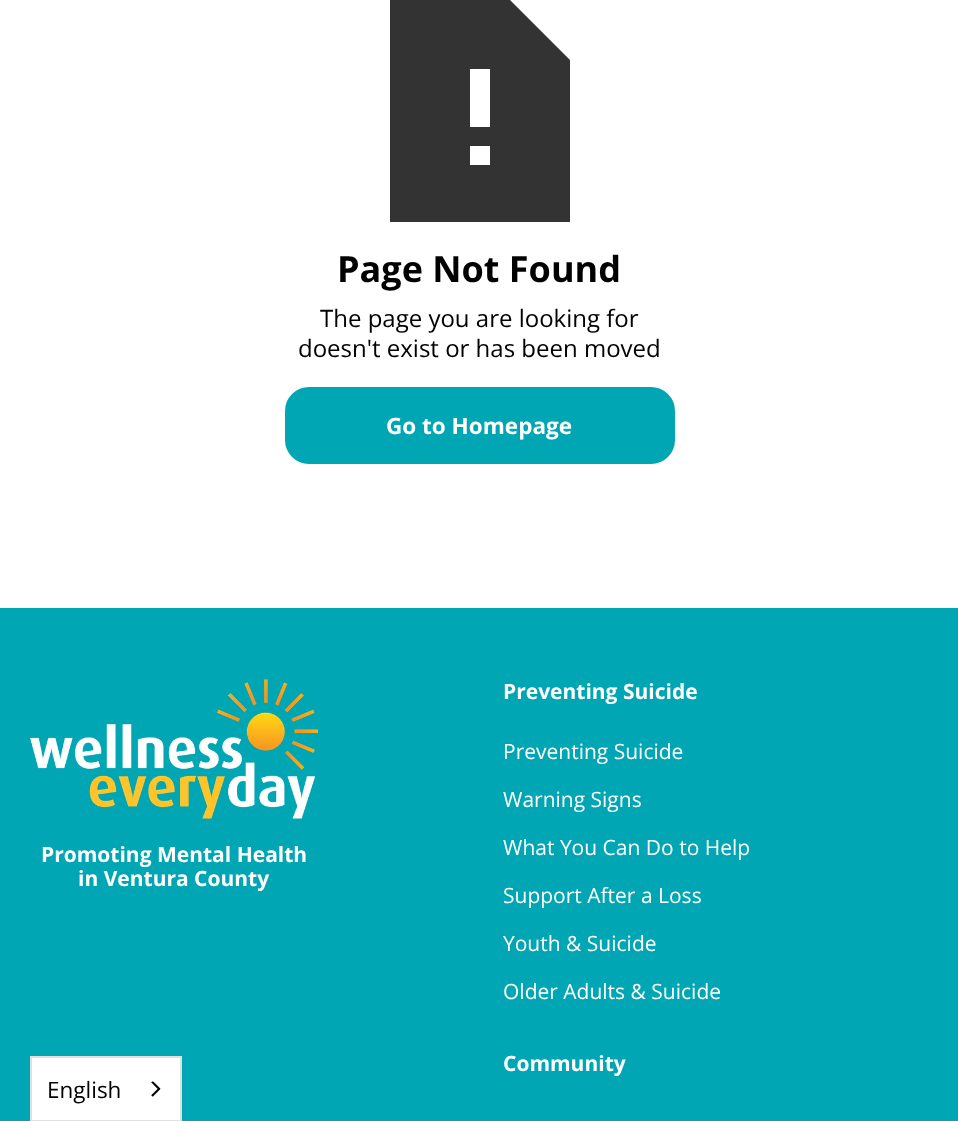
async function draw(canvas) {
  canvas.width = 958
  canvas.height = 1121
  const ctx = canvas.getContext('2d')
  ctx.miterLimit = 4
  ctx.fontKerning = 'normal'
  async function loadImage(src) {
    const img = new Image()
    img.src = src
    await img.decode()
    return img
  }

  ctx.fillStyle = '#fff'
  ctx.fillRect(0, 0, 958, 1121)
  ctx.fillStyle = '#333'
  ctx.beginPath()
  ctx.moveTo(390, -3)
  ctx.lineTo(507, -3)
  ctx.lineTo(570, 60)
  ctx.lineTo(570, 222)
  ctx.lineTo(390, 222)
  ctx.closePath()
  ctx.moveTo(470, 69)
  ctx.lineTo(490, 69)
  ctx.lineTo(490, 127)
  ctx.lineTo(470, 127)
  ctx.closePath()
  ctx.moveTo(470, 146)
  ctx.lineTo(490, 146)
  ctx.lineTo(490, 165)
  ctx.lineTo(470, 165)
  ctx.closePath()
  ctx.fill('evenodd')
  ctx.font = 'bold 36px Open Sans'
  ctx.fillStyle = '#000'
  ctx.fillText('Page Not Found', 337, 282)
  ctx.font = '24px Open Sans'
  ctx.fillText('The page you are looking for', 320, 327)
  ctx.fillText('doesn\'t exist or has been moved', 298, 357)
  ctx.fillStyle = '#00a6b3'
  ctx.beginPath()
  ctx.roundRect(286.5, 388.5, 387, 74, 22.5)
  ctx.fill()
  ctx.strokeStyle = '#00a6b3'
  ctx.lineWidth = 3
  ctx.stroke()
  ctx.font = 'bold 22.5px Open Sans'
  ctx.fillStyle = '#fff'
  ctx.fillText('Go to Homepage', 386, 434)
  ctx.fillStyle = '#00a6b3'
  ctx.fillRect(0, 608, 958, 513)
  ctx.drawImage(await loadImage('image0.png'), 30, 679, 288, 140)
  ctx.font = 'bold 21px Open Sans'
  ctx.fillStyle = '#fff'
  ctx.fillText('Promoting Mental Health', 41, 862)
  ctx.fillText('in Ventura County', 78, 886)
  ctx.fillText('Preventing Suicide', 503, 699)
  ctx.font = '21px Open Sans'
  ctx.fillText('Preventing Suicide', 503, 759)
  ctx.fillText('Warning Signs', 503, 807)
  ctx.fillText('What You Can Do to Help', 503, 855)
  ctx.fillText('Support After a Loss', 503, 903)
  ctx.fillText('Youth & Suicide', 503, 951)
  ctx.fillText('Older Adults & Suicide', 503, 999)
  ctx.font = 'bold 21px Open Sans'
  ctx.fillText('Community', 503, 1071)
  ctx.beginPath()
  ctx.rect(31, 1057, 150, 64)
  ctx.fill()
  ctx.strokeStyle = '#e0e0e0'
  ctx.lineWidth = 2
  ctx.stroke()
  ctx.font = '22.5px Open Sans'
  ctx.fillStyle = '#000'
  ctx.fillText('English', 47, 1098)
  ctx.drawImage(await loadImage('image1.png'), 151, 1081, 10, 16)
}

draw(document.querySelector('canvas'))
